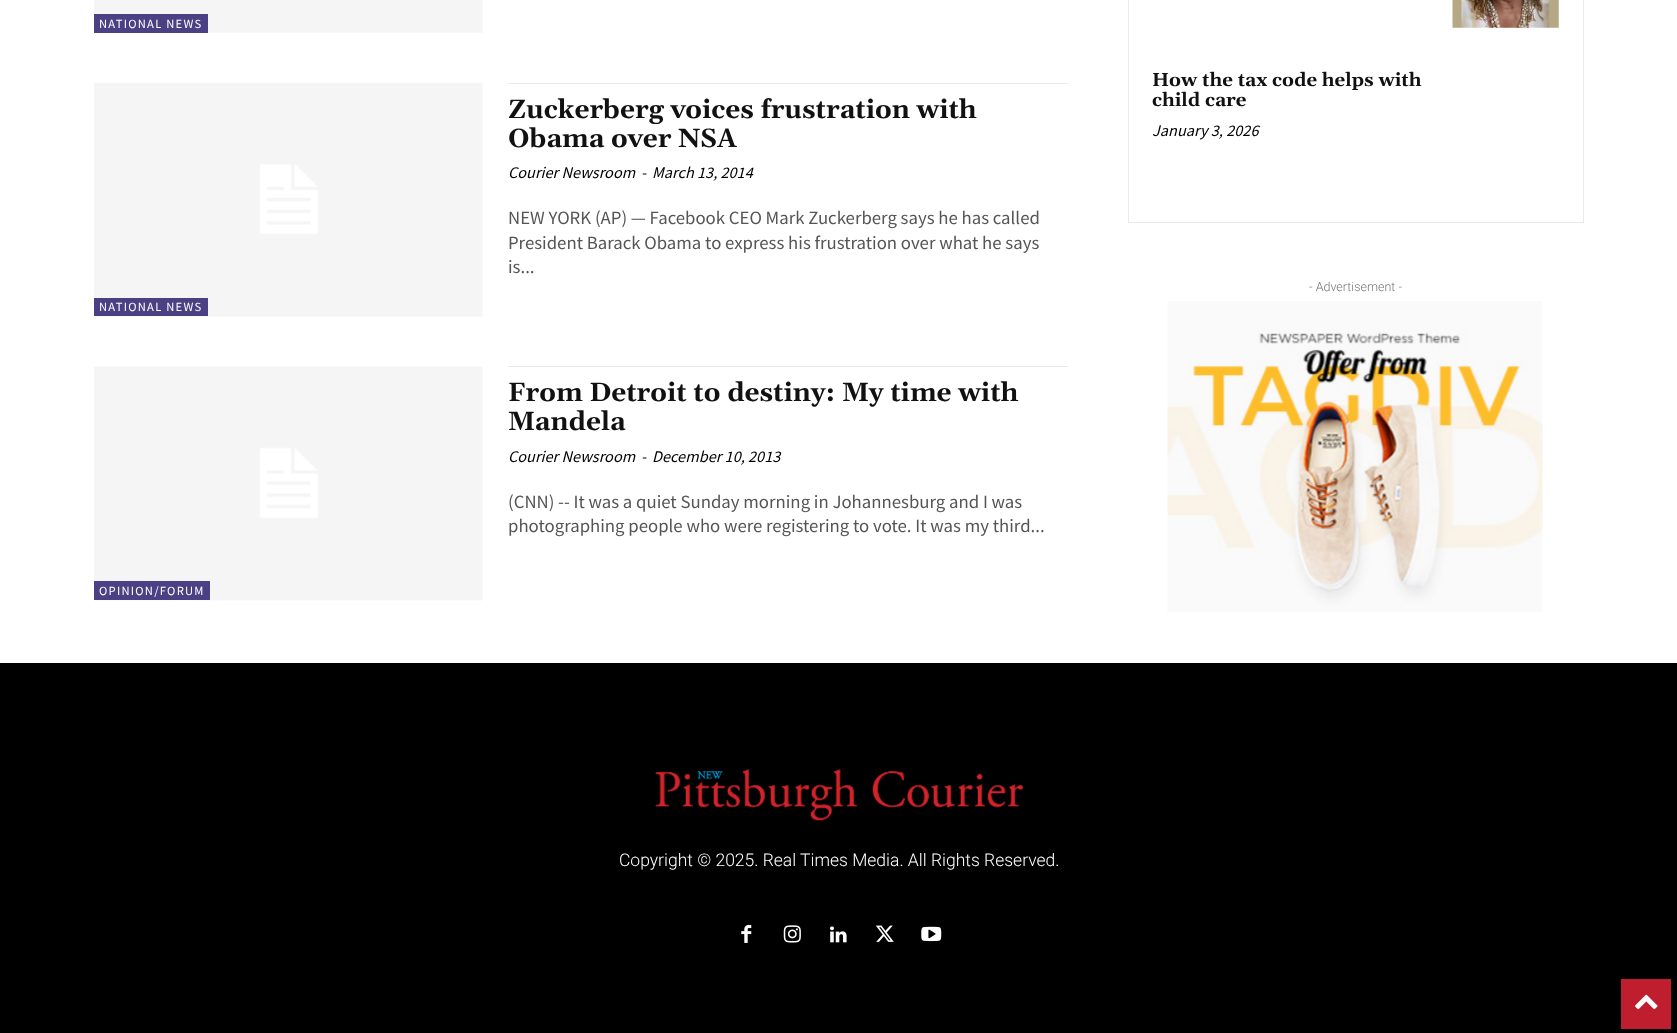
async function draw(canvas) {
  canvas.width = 1677
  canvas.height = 1033
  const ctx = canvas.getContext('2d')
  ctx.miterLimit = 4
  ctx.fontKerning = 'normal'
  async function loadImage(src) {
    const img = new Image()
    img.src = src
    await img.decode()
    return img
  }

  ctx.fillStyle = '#fff'
  ctx.fillRect(0, 0, 1677, 1033)
  ctx.drawImage(await loadImage('image0.png'), 94, 0, 389, 33)
  ctx.fillStyle = '#4c4084'
  ctx.fillRect(94, 14, 114, 19)
  ctx.letterSpacing = '1.25px'
  ctx.font = '12.5px Source Sans Pro'
  ctx.fillStyle = '#fff'
  ctx.fillText('NATIONAL NEWS', 99, 28)
  ctx.fillStyle = '#eaeaea'
  ctx.fillRect(508, 83, 560, 1)
  ctx.letterSpacing = '0px'
  ctx.font = 'bold 26.25px Gelasio'
  ctx.fillStyle = '#111'
  ctx.fillText('Zuckerberg voices frustration with', 508, 118)
  ctx.fillText('Obama over NSA', 508, 147)
  ctx.font = 'italic 16.25px Source Sans Pro'
  ctx.fillStyle = '#000'
  ctx.fillText('Courier Newsroom', 508, 178)
  ctx.fillText('-', 641, 178)
  ctx.fillText('March 13, 2014', 652, 178)
  ctx.font = '18.75px Source Sans Pro'
  ctx.fillStyle = '#555'
  ctx.fillText('NEW YORK (AP) — Facebook CEO Mark Zuckerberg says he has called', 508, 224)
  ctx.fillText('President Barack Obama to express his frustration over what he says', 508, 249)
  ctx.fillText('is...', 508, 273)
  ctx.drawImage(await loadImage('image1.png'), 94, 83, 389, 234)
  ctx.fillStyle = '#4c4084'
  ctx.fillRect(94, 298, 114, 18)
  ctx.letterSpacing = '1.25px'
  ctx.font = '12.5px Source Sans Pro'
  ctx.fillStyle = '#fff'
  ctx.fillText('NATIONAL NEWS', 99, 311)
  ctx.fillStyle = '#eaeaea'
  ctx.fillRect(508, 366, 560, 1)
  ctx.letterSpacing = '0px'
  ctx.font = 'bold 26.25px Gelasio'
  ctx.fillStyle = '#111'
  ctx.fillText('From Detroit to destiny: My time with', 508, 401)
  ctx.fillText('Mandela', 508, 430)
  ctx.font = 'italic 16.25px Source Sans Pro'
  ctx.fillStyle = '#000'
  ctx.fillText('Courier Newsroom', 508, 462)
  ctx.fillText('-', 641, 462)
  ctx.fillText('December 10, 2013', 652, 462)
  ctx.font = '18.75px Source Sans Pro'
  ctx.fillStyle = '#555'
  ctx.fillText('(CNN) -- It was a quiet Sunday morning in Johannesburg and I was', 508, 508)
  ctx.fillText('photographing people who were registering to vote. It was my third...', 508, 532)
  ctx.drawImage(await loadImage('image2.png'), 94, 366, 389, 235)
  ctx.fillStyle = '#4c4084'
  ctx.fillRect(94, 581, 116, 19)
  ctx.letterSpacing = '1.25px'
  ctx.font = '12.5px Source Sans Pro'
  ctx.fillStyle = '#fff'
  ctx.fillText('OPINION/FORUM', 99, 595)
  ctx.strokeStyle = '#eaeaea'
  ctx.strokeRect(1128.5, -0.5, 455, 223)
  ctx.drawImage(await loadImage('image3.png'), 1452, 0, 107, 28)
  ctx.letterSpacing = '0px'
  ctx.font = 'bold 18.75px Gelasio'
  ctx.fillStyle = '#111'
  ctx.fillText('How the tax code helps with', 1152, 86)
  ctx.fillText('child care', 1152, 106)
  ctx.font = 'italic 16.25px Source Sans Pro'
  ctx.fillStyle = '#000'
  ctx.fillText('January 3, 2026', 1152, 136)
  ctx.font = '300 12.5px Roboto'
  ctx.fillStyle = '#767676'
  ctx.fillText('- Advertisement -', 1309, 291)
  ctx.drawImage(await loadImage('image4.png'), 1167, 301, 376, 311)
  ctx.fillStyle = '#000'
  ctx.fillRect(0, 663, 1677, 370)
  ctx.drawImage(await loadImage('image5.png'), 655, 769, 369, 52)
  ctx.font = '300 17.5px Roboto'
  ctx.fillStyle = '#fff'
  ctx.fillText('Copyright © 2025. Real Times Media. All Rights Reserved.', 619, 866)
  ctx.drawImage(await loadImage('image6.png'), 741, 924, 11, 19)
  ctx.drawImage(await loadImage('image7.png'), 783, 925, 18, 18)
  ctx.drawImage(await loadImage('image8.png'), 830, 926, 17, 17)
  ctx.drawImage(await loadImage('image9.png'), 875, 925, 19, 17)
  ctx.drawImage(await loadImage('image10.png'), 921, 926, 21, 16)
  ctx.fillStyle = '#be1e2d'
  ctx.fillRect(1621, 979, 50, 50)
  ctx.drawImage(await loadImage('image11.png'), 1635, 994, 23, 16)
}

draw(document.querySelector('canvas'))
